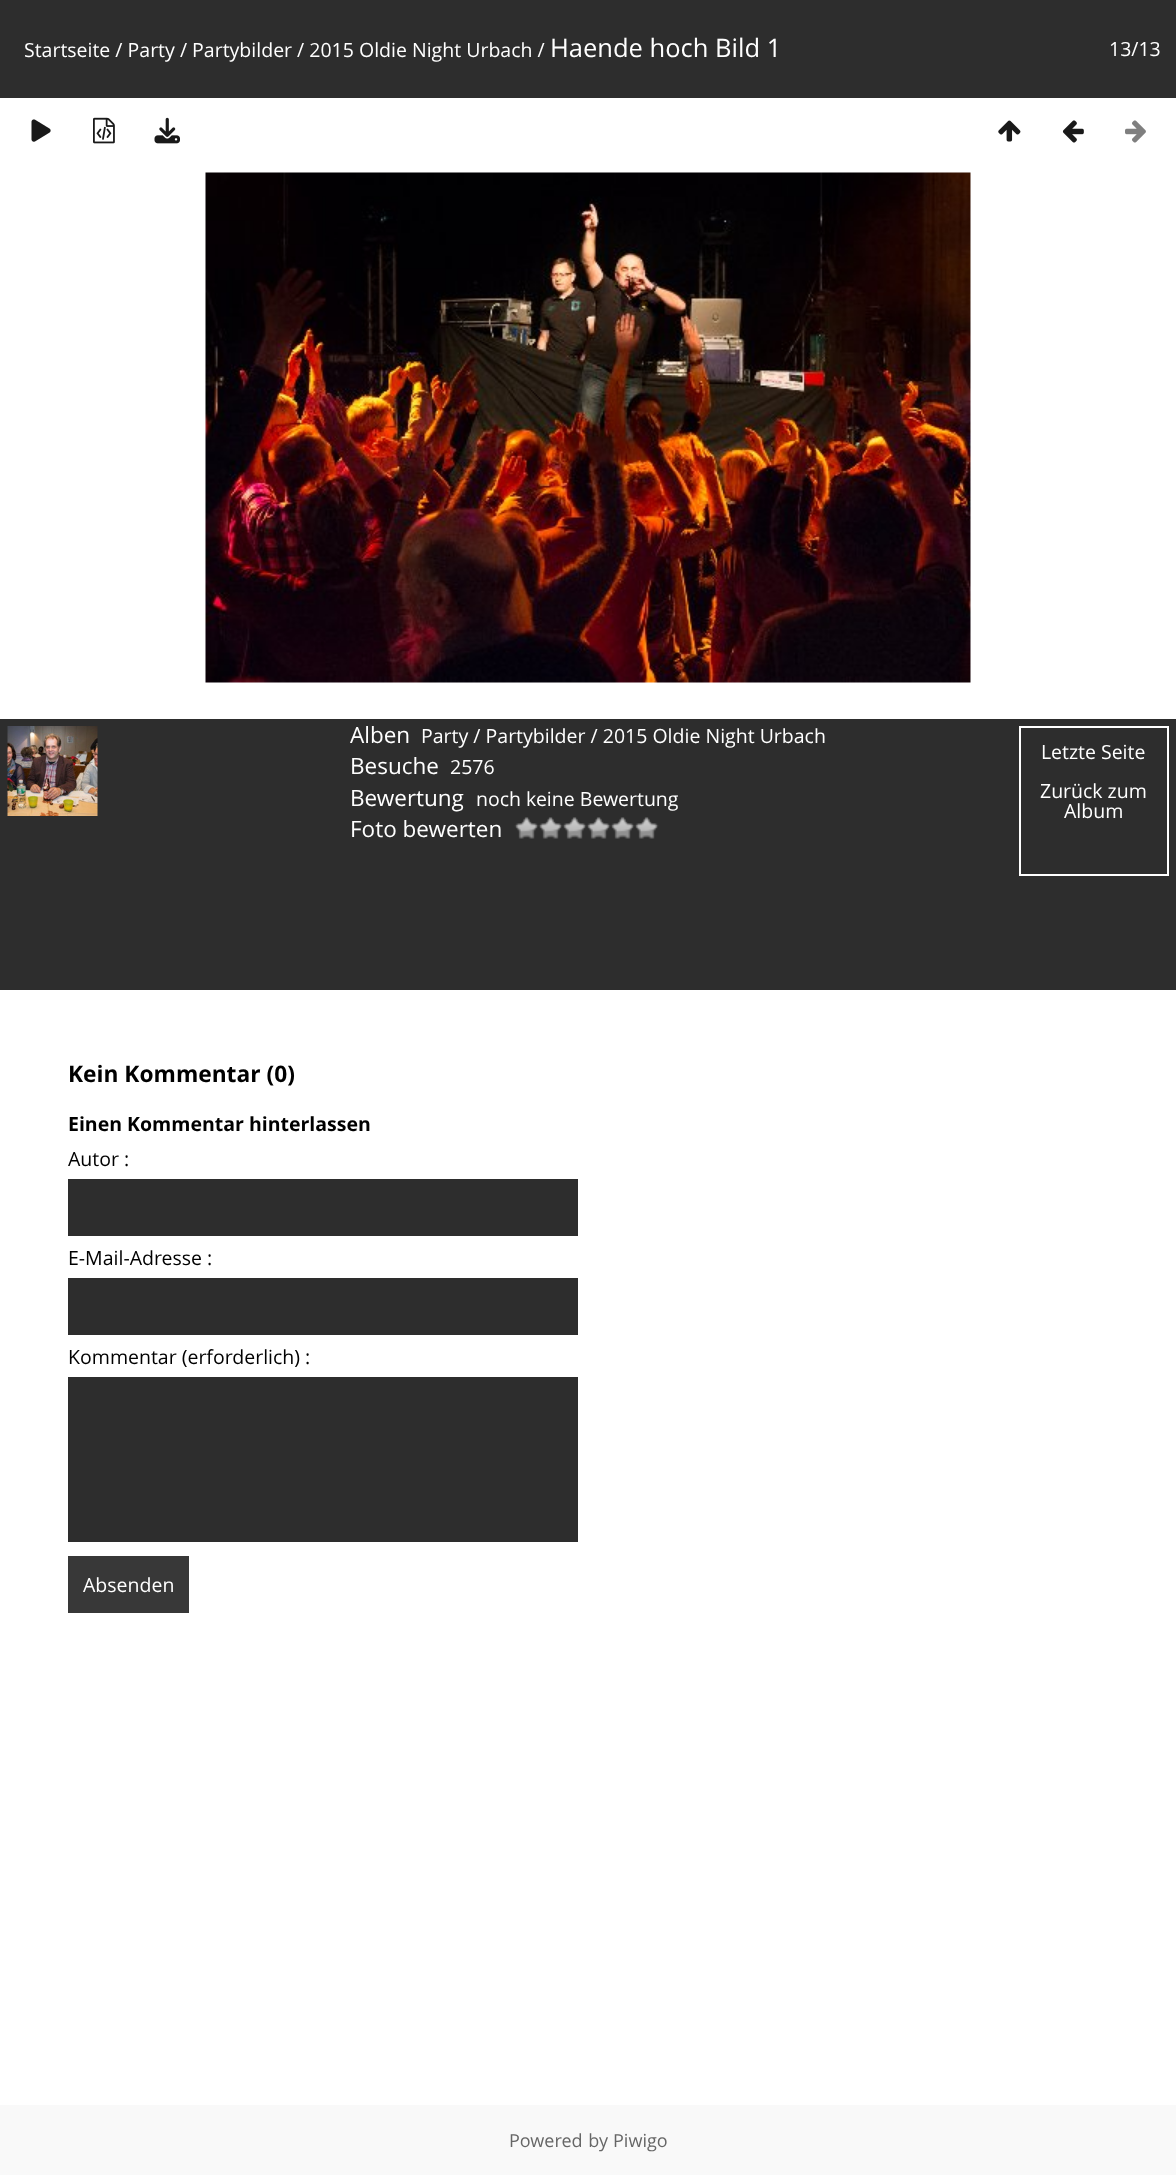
async function draw(canvas) {
  canvas.width = 1176
  canvas.height = 2175
  const ctx = canvas.getContext('2d')
  ctx.miterLimit = 4
  ctx.fontKerning = 'normal'
  async function loadImage(src) {
    const img = new Image()
    img.src = src
    await img.decode()
    return img
  }

  ctx.fillStyle = '#fff'
  ctx.fillRect(0, 0, 1176, 2175)
  ctx.fillStyle = '#2d2d2d'
  ctx.fillRect(0, 0, 1176, 98)
  ctx.font = '19.5px Open Sans'
  ctx.fillStyle = '#fff'
  ctx.fillText('Startseite / Party / Partybilder / 2015 Oldie Night Urbach /', 24, 57)
  ctx.font = '25.5px Open Sans'
  ctx.fillText('Haende hoch Bild 1', 550, 57)
  ctx.font = '19.5px Open Sans'
  ctx.fillText('13/13', 1109, 56)
  ctx.drawImage(await loadImage('image0.png'), 31, 119, 20, 23)
  ctx.drawImage(await loadImage('image1.png'), 93, 117, 22, 27)
  ctx.drawImage(await loadImage('image2.png'), 154, 117, 26, 27)
  ctx.drawImage(await loadImage('image3.png'), 998, 120, 23, 22)
  ctx.drawImage(await loadImage('image4.png'), 1062, 120, 22, 23)
  ctx.drawImage(await loadImage('image5.png'), 1125, 120, 21, 23)
  ctx.drawImage(await loadImage('image6.png'), 205, 172, 766, 511)
  ctx.fillStyle = '#2d2d2d'
  ctx.fillRect(0, 719, 1176, 271)
  ctx.font = '22.5px Open Sans'
  ctx.fillStyle = '#fff'
  ctx.fillText('Alben', 350, 743)
  ctx.font = '19.5px Open Sans'
  ctx.fillText('Party / Partybilder / 2015 Oldie Night Urbach', 421, 743)
  ctx.font = '22.5px Open Sans'
  ctx.fillText('Besuche', 350, 774)
  ctx.font = '19.5px Open Sans'
  ctx.fillText('2576', 450, 774)
  ctx.font = '22.5px Open Sans'
  ctx.fillText('Bewertung', 350, 806)
  ctx.font = '19.5px Open Sans'
  ctx.fillText('noch keine Bewertung', 476, 806)
  ctx.font = '22.5px Open Sans'
  ctx.fillText('Foto bewerten', 350, 837)
  ctx.drawImage(await loadImage('image7.png'), 514, 817, 25, 22)
  ctx.drawImage(await loadImage('image8.png'), 538, 817, 25, 22)
  ctx.drawImage(await loadImage('image8.png'), 562, 817, 25, 22)
  ctx.drawImage(await loadImage('image8.png'), 586, 817, 25, 22)
  ctx.drawImage(await loadImage('image8.png'), 610, 817, 25, 22)
  ctx.drawImage(await loadImage('image8.png'), 634, 817, 25, 22)
  ctx.drawImage(await loadImage('image9.png'), 7, 726, 91, 90)
  ctx.strokeStyle = '#fff'
  ctx.lineWidth = 2
  ctx.strokeRect(1020, 727, 148, 148)
  ctx.font = '19.5px Open Sans'
  ctx.fillText('Letzte Seite', 1041, 759)
  ctx.fillText('Zurück zum', 1040, 798)
  ctx.fillText('Album', 1064, 818)
  ctx.font = 'bold 22.75px Open Sans'
  ctx.fillStyle = '#000'
  ctx.fillText('Kein Kommentar (0)', 68, 1082)
  ctx.font = 'bold 19.5px Open Sans'
  ctx.fillText('Einen Kommentar hinterlassen', 68, 1131)
  ctx.font = '19.5px Open Sans'
  ctx.fillText('Autor :', 68, 1166)
  ctx.fillStyle = '#2d2d2d'
  ctx.fillRect(68, 1179, 510, 57)
  ctx.fillStyle = '#000'
  ctx.fillText('E-Mail-Adresse :', 68, 1265)
  ctx.fillStyle = '#2d2d2d'
  ctx.fillRect(68, 1278, 510, 57)
  ctx.fillStyle = '#000'
  ctx.fillText('Kommentar (erforderlich) :', 68, 1364)
  ctx.fillStyle = '#2d2d2d'
  ctx.fillRect(68, 1377, 510, 165)
  ctx.fillStyle = '#383838'
  ctx.fillRect(68, 1556, 121, 57)
  ctx.fillStyle = '#fff'
  ctx.fillText('Absenden', 83, 1592)
  ctx.fillStyle = '#f9f9f9'
  ctx.fillRect(0, 2105, 1176, 70)
  ctx.wordSpacing = '1px'
  ctx.font = '18px Open Sans'
  ctx.fillStyle = '#666'
  ctx.fillText('Powered by', 509, 2147)
  ctx.wordSpacing = '0px'
  ctx.fillText('Piwigo', 613, 2147)
}

draw(document.querySelector('canvas'))
